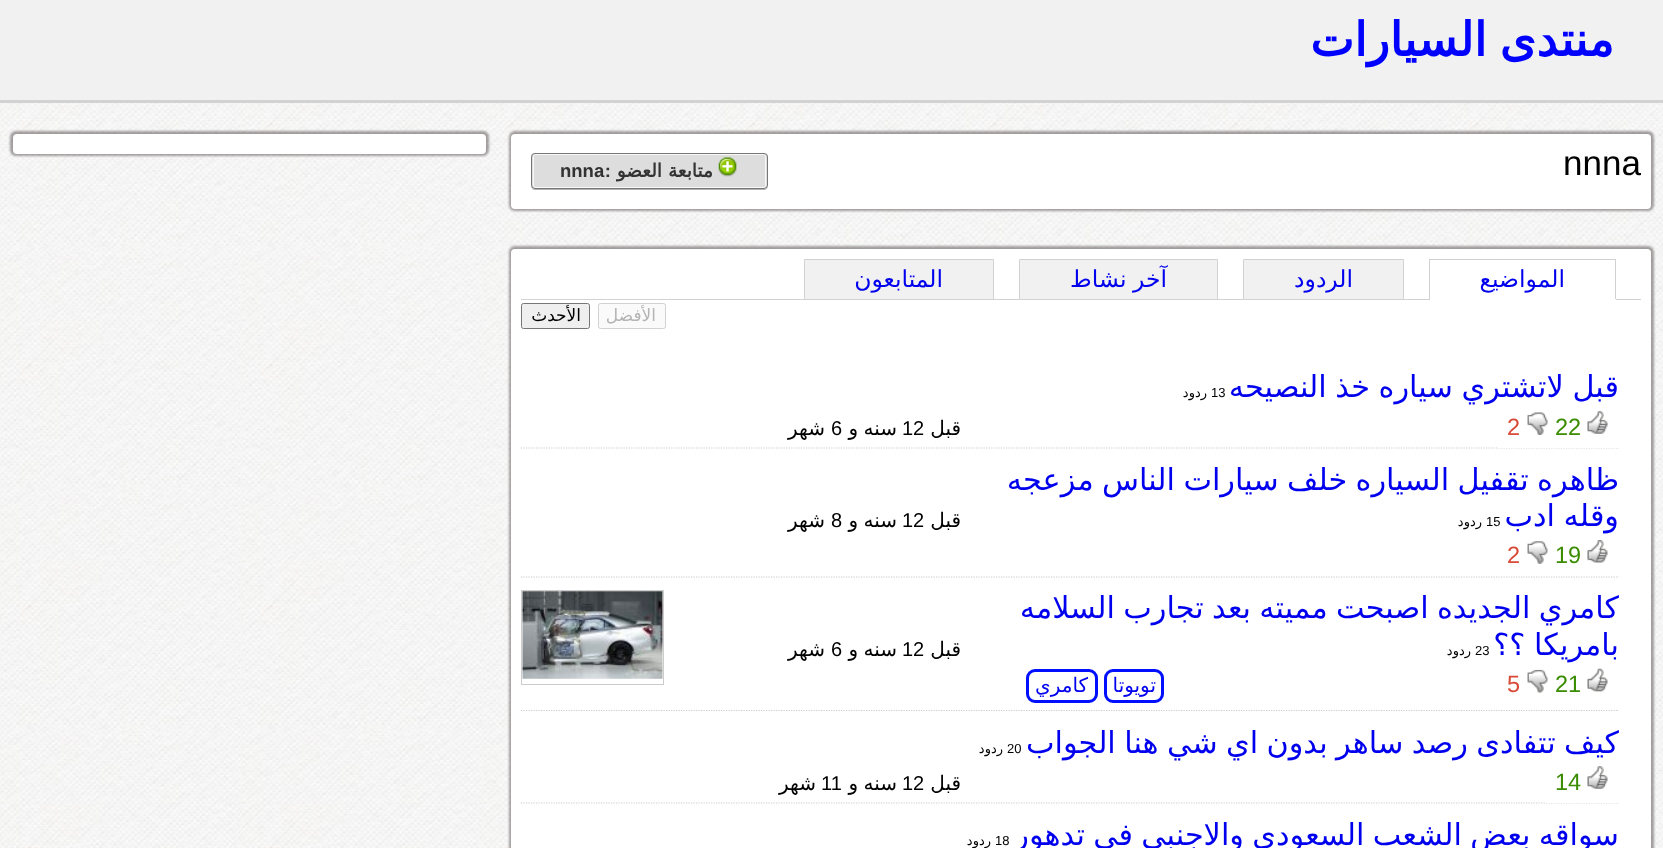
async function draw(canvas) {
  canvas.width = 1663
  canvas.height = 848
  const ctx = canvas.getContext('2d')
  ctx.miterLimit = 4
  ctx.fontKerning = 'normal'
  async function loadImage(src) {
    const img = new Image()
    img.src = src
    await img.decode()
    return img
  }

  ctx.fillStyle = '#fff'
  ctx.fillRect(0, 0, 1663, 848)
  ctx.drawImage(await loadImage('image0.png'), 0, 103, 1663, 745)
  ctx.fillStyle = '#f1f1f1'
  ctx.fillRect(0, 0, 1663, 100)
  ctx.fillStyle = '#d2d2d2'
  ctx.fillRect(0, 100, 1663, 3)
  ctx.wordSpacing = '-2px'
  ctx.direction = 'rtl'
  ctx.font = 'bold 46.75px DejaVu Sans'
  ctx.fillStyle = '#00f'
  ctx.fillText('منتدى السيارات', 1614, 56)
  ctx.fillStyle = '#22191966'
  ctx.filter = 'blur(1px)'
  ctx.beginPath()
  ctx.roundRect(10, 131, 479, 25, 6)
  ctx.fill()
  ctx.filter = 'none'
  ctx.fillStyle = '#fff'
  ctx.beginPath()
  ctx.roundRect(13, 134, 473, 20, 4)
  ctx.fill()
  ctx.fillStyle = '#22191966'
  ctx.filter = 'blur(1px)'
  ctx.beginPath()
  ctx.roundRect(509, 131, 1145, 80, 6)
  ctx.fill()
  ctx.filter = 'none'
  ctx.fillStyle = '#fff'
  ctx.beginPath()
  ctx.roundRect(511, 134, 1140, 75, 4)
  ctx.fill()
  ctx.wordSpacing = '0px'
  ctx.direction = 'ltr'
  ctx.font = '35px Liberation Sans'
  ctx.fillStyle = '#000'
  ctx.fillText('nnna', 1563, 175)
  ctx.fillStyle = '#b3b3b3'
  ctx.beginPath()
  ctx.moveTo(531, 157)
  ctx.lineTo(531, 186)
  ctx.bezierCurveTo(531, 188, 533, 190, 535, 190)
  ctx.lineTo(764, 190)
  ctx.bezierCurveTo(766, 190, 768, 188, 768, 186)
  ctx.lineTo(768, 158)
  ctx.lineTo(767, 156)
  ctx.lineTo(768, 185)
  ctx.bezierCurveTo(768, 187, 766, 189, 764, 189)
  ctx.lineTo(535, 189)
  ctx.bezierCurveTo(533, 189, 531, 187, 531, 185)
  ctx.closePath()
  ctx.fill()
  ctx.fillStyle = '#ddd'
  ctx.beginPath()
  ctx.roundRect(531, 153, 237, 36, 4)
  ctx.fill()
  ctx.beginPath()
  ctx.roundRect(533.5, 154.5, 232, 33, 2)
  ctx.strokeStyle = '#f8f8f8'
  ctx.stroke()
  ctx.beginPath()
  ctx.roundRect(531.5, 153.5, 236, 35, 3.5)
  ctx.strokeStyle = '#777'
  ctx.stroke()
  ctx.drawImage(await loadImage('image1.png'), 718, 157, 19, 20)
  ctx.direction = 'rtl'
  ctx.font = 'bold 18.5px DejaVu Sans'
  ctx.fillStyle = '#333'
  ctx.fillText('متابعة العضو', 713, 177)
  ctx.font = 'bold 18.5px Liberation Sans'
  ctx.fillText(':', 611, 177)
  ctx.direction = 'ltr'
  ctx.fillText('nnna', 560, 177)
  ctx.fillStyle = '#22191966'
  ctx.filter = 'blur(1px)'
  ctx.beginPath()
  ctx.roundRect(509, 246, 1145, 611, 6)
  ctx.fill()
  ctx.filter = 'none'
  ctx.fillStyle = '#fff'
  ctx.beginPath()
  ctx.roundRect(511, 249, 1140, 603, 4)
  ctx.fill()
  ctx.fillStyle = '#d2d2d2'
  ctx.fillRect(521, 299, 1120, 1)
  ctx.fillRect(1429, 259, 187, 1)
  ctx.fillRect(1615, 259, 1, 41)
  ctx.fillStyle = '#fff'
  ctx.fillRect(1429, 299, 187, 1)
  ctx.fillStyle = '#d2d2d2'
  ctx.fillRect(1429, 259, 1, 41)
  ctx.direction = 'rtl'
  ctx.font = '23.5px DejaVu Sans'
  ctx.fillStyle = '#00e'
  ctx.fillText('المواضيع', 1565, 287)
  ctx.fillStyle = '#f1f1f1'
  ctx.beginPath()
  ctx.rect(1243.5, 259.5, 160, 40)
  ctx.fill()
  ctx.strokeStyle = '#d2d2d2'
  ctx.stroke()
  ctx.fillStyle = '#00e'
  ctx.fillText('الردود', 1353, 287)
  ctx.fillStyle = '#f1f1f1'
  ctx.beginPath()
  ctx.rect(1019.5, 259.5, 198, 40)
  ctx.fill()
  ctx.stroke()
  ctx.wordSpacing = '-1px'
  ctx.fillStyle = '#00e'
  ctx.fillText('آخر نشاط', 1167, 287)
  ctx.fillStyle = '#f1f1f1'
  ctx.beginPath()
  ctx.rect(804.5, 259.5, 189, 40)
  ctx.fill()
  ctx.stroke()
  ctx.wordSpacing = '0px'
  ctx.fillStyle = '#00e'
  ctx.fillText('المتابعون', 943, 287)
  ctx.fillStyle = '#fafafa'
  ctx.beginPath()
  ctx.roundRect(598.5, 303.5, 67, 25, 2)
  ctx.fill()
  ctx.stroke()
  ctx.font = '17px DejaVu Sans'
  ctx.fillStyle = '#b4b4b4'
  ctx.fillText('الأفضل', 656, 321)
  ctx.fillStyle = '#efefef'
  ctx.beginPath()
  ctx.roundRect(521.5, 303.5, 68, 25, 2)
  ctx.fill()
  ctx.strokeStyle = '#767676'
  ctx.stroke()
  ctx.fillStyle = '#000'
  ctx.fillText('الأحدث', 581, 321)
  ctx.beginPath()
  ctx.moveTo(521, 448)
  ctx.lineTo(1619, 448)
  ctx.strokeStyle = '#ccc'
  ctx.lineWidth = 1.2
  ctx.setLineDash([1.25, 1.25])
  ctx.stroke()
  ctx.wordSpacing = '-1px'
  ctx.font = '30.3px DejaVu Sans'
  ctx.fillStyle = '#00e'
  ctx.fillText('قبل لاتشتري سياره خذ النصيحه', 1619, 397)
  ctx.wordSpacing = '0px'
  ctx.direction = 'ltr'
  ctx.font = '13px Liberation Sans'
  ctx.fillStyle = '#000'
  ctx.fillText('13', 1211, 397)
  ctx.direction = 'rtl'
  ctx.font = '13px DejaVu Sans'
  ctx.fillText('ردود', 1207, 397)
  ctx.strokeStyle = '#fff'
  ctx.lineWidth = 3
  ctx.setLineDash([])
  ctx.strokeRect(1499.5, 406.5, 118, 40)
  ctx.drawImage(await loadImage('image2.png'), 1587, 411, 21, 23)
  ctx.direction = 'ltr'
  ctx.font = '23.5px Liberation Sans'
  ctx.fillStyle = '#3a8c00'
  ctx.fillText('22', 1555, 435)
  ctx.drawImage(await loadImage('image3.png'), 1527, 412, 21, 23)
  ctx.fillStyle = '#d94a38'
  ctx.fillText('2', 1507, 435)
  ctx.direction = 'rtl'
  ctx.font = '20px DejaVu Sans'
  ctx.fillStyle = '#000'
  ctx.fillText('قبل', 961, 435)
  ctx.direction = 'ltr'
  ctx.font = '20px Liberation Sans'
  ctx.fillText('12', 902, 435)
  ctx.wordSpacing = '-1px'
  ctx.direction = 'rtl'
  ctx.font = '20px DejaVu Sans'
  ctx.fillText('سنه و', 897, 435)
  ctx.wordSpacing = '0px'
  ctx.direction = 'ltr'
  ctx.font = '20px Liberation Sans'
  ctx.fillText('6', 831, 435)
  ctx.direction = 'rtl'
  ctx.font = '20px DejaVu Sans'
  ctx.fillText('شهر', 825, 435)
  ctx.beginPath()
  ctx.moveTo(521, 577)
  ctx.lineTo(1619, 577)
  ctx.strokeStyle = '#ccc'
  ctx.lineWidth = 1.2
  ctx.setLineDash([1.25, 1.25])
  ctx.stroke()
  ctx.wordSpacing = '-1.25px'
  ctx.font = '30.3px DejaVu Sans'
  ctx.fillStyle = '#00e'
  ctx.fillText('ظاهره تقفيل السياره خلف سيارات الناس مزعجه', 1619, 490)
  ctx.wordSpacing = '-1px'
  ctx.fillText('وقله ادب', 1619, 526)
  ctx.wordSpacing = '0px'
  ctx.direction = 'ltr'
  ctx.font = '13px Liberation Sans'
  ctx.fillStyle = '#000'
  ctx.fillText('15', 1486, 526)
  ctx.direction = 'rtl'
  ctx.font = '13px DejaVu Sans'
  ctx.fillText('ردود', 1482, 526)
  ctx.drawImage(await loadImage('image4.png'), 1587, 540, 21, 23)
  ctx.direction = 'ltr'
  ctx.font = '23.5px Liberation Sans'
  ctx.fillStyle = '#3a8c00'
  ctx.fillText('19', 1555, 563)
  ctx.drawImage(await loadImage('image5.png'), 1527, 541, 21, 23)
  ctx.fillStyle = '#d94a38'
  ctx.fillText('2', 1507, 563)
  ctx.direction = 'rtl'
  ctx.font = '20px DejaVu Sans'
  ctx.fillStyle = '#000'
  ctx.fillText('قبل', 961, 527)
  ctx.direction = 'ltr'
  ctx.font = '20px Liberation Sans'
  ctx.fillText('12', 902, 527)
  ctx.wordSpacing = '-1px'
  ctx.direction = 'rtl'
  ctx.font = '20px DejaVu Sans'
  ctx.fillText('سنه و', 897, 527)
  ctx.wordSpacing = '0px'
  ctx.direction = 'ltr'
  ctx.font = '20px Liberation Sans'
  ctx.fillText('8', 831, 527)
  ctx.direction = 'rtl'
  ctx.font = '20px DejaVu Sans'
  ctx.fillText('شهر', 825, 527)
  ctx.beginPath()
  ctx.moveTo(521, 710.5)
  ctx.lineTo(1619, 710.5)
  ctx.stroke()
  ctx.wordSpacing = '-1.25px'
  ctx.font = '30.3px DejaVu Sans'
  ctx.fillStyle = '#00e'
  ctx.fillText('كامري الجديده اصبحت مميته بعد تجارب السلامه', 1619, 618)
  ctx.wordSpacing = '-1px'
  ctx.fillText('بامريكا ؟؟', 1619, 655)
  ctx.wordSpacing = '0px'
  ctx.direction = 'ltr'
  ctx.font = '13px Liberation Sans'
  ctx.fillStyle = '#000'
  ctx.fillText('23', 1475, 655)
  ctx.direction = 'rtl'
  ctx.font = '13px DejaVu Sans'
  ctx.fillText('ردود', 1471, 655)
  ctx.drawImage(await loadImage('image6.png'), 1587, 668, 21, 24)
  ctx.direction = 'ltr'
  ctx.font = '23.5px Liberation Sans'
  ctx.fillStyle = '#3a8c00'
  ctx.fillText('21', 1555, 692)
  ctx.drawImage(await loadImage('image7.png'), 1527, 669, 21, 24)
  ctx.fillStyle = '#d94a38'
  ctx.fillText('5', 1507, 692)
  ctx.beginPath()
  ctx.roundRect(1105.5, 670.5, 57, 31, 7.5)
  ctx.strokeStyle = '#000fff'
  ctx.lineWidth = 3
  ctx.setLineDash([])
  ctx.stroke()
  ctx.direction = 'rtl'
  ctx.font = '20px DejaVu Sans'
  ctx.fillStyle = '#00e'
  ctx.fillText('تويوتا', 1156, 692)
  ctx.beginPath()
  ctx.roundRect(1027.5, 670.5, 69, 31, 7.5)
  ctx.stroke()
  ctx.fillText('كامري', 1088, 692)
  ctx.fillStyle = '#000'
  ctx.fillText('قبل', 961, 656)
  ctx.direction = 'ltr'
  ctx.font = '20px Liberation Sans'
  ctx.fillText('12', 902, 656)
  ctx.wordSpacing = '-1px'
  ctx.direction = 'rtl'
  ctx.font = '20px DejaVu Sans'
  ctx.fillText('سنه و', 897, 656)
  ctx.wordSpacing = '0px'
  ctx.direction = 'ltr'
  ctx.font = '20px Liberation Sans'
  ctx.fillText('6', 831, 656)
  ctx.direction = 'rtl'
  ctx.font = '20px DejaVu Sans'
  ctx.fillText('شهر', 825, 656)
  ctx.strokeStyle = '#ccc'
  ctx.lineWidth = 1
  ctx.strokeRect(521.5, 590.5, 142, 94)
  ctx.drawImage(await loadImage('image8.png'), 522, 591, 141, 88)
  ctx.beginPath()
  ctx.moveTo(521, 803)
  ctx.lineTo(1619, 803)
  ctx.lineWidth = 1.2
  ctx.setLineDash([1.25, 1.25])
  ctx.stroke()
  ctx.strokeStyle = '#fff'
  ctx.lineWidth = 3
  ctx.setLineDash([])
  ctx.strokeRect(1547.5, 761.5, 70, 40)
  ctx.wordSpacing = '-1.25px'
  ctx.font = '30.3px DejaVu Sans'
  ctx.fillStyle = '#00e'
  ctx.fillText('كيف تتفادى رصد ساهر بدون اي شي هنا الجواب', 1619, 753)
  ctx.wordSpacing = '0px'
  ctx.direction = 'ltr'
  ctx.font = '13px Liberation Sans'
  ctx.fillStyle = '#000'
  ctx.fillText('20', 1007, 753)
  ctx.direction = 'rtl'
  ctx.font = '13px DejaVu Sans'
  ctx.fillText('ردود', 1003, 753)
  ctx.drawImage(await loadImage('image2.png'), 1587, 766, 21, 23)
  ctx.direction = 'ltr'
  ctx.font = '23.5px Liberation Sans'
  ctx.fillStyle = '#3a8c00'
  ctx.fillText('14', 1555, 790)
  ctx.direction = 'rtl'
  ctx.font = '20px DejaVu Sans'
  ctx.fillStyle = '#000'
  ctx.fillText('قبل', 961, 790)
  ctx.direction = 'ltr'
  ctx.font = '20px Liberation Sans'
  ctx.fillText('12', 902, 790)
  ctx.wordSpacing = '-1px'
  ctx.direction = 'rtl'
  ctx.font = '20px DejaVu Sans'
  ctx.fillText('سنه و', 897, 790)
  ctx.wordSpacing = '0px'
  ctx.direction = 'ltr'
  ctx.font = '20px Liberation Sans'
  ctx.fillText('11', 821, 790)
  ctx.direction = 'rtl'
  ctx.font = '20px DejaVu Sans'
  ctx.fillText('شهر', 816, 790)
  ctx.wordSpacing = '-1.25px'
  ctx.font = '30.3px DejaVu Sans'
  ctx.fillStyle = '#00e'
  ctx.fillText('سواقه بعض الشعب السعودي والاجنبي في تدهور', 1619, 845)
  ctx.wordSpacing = '0px'
  ctx.direction = 'ltr'
  ctx.font = '13px Liberation Sans'
  ctx.fillStyle = '#000'
  ctx.fillText('18', 995, 845)
  ctx.direction = 'rtl'
  ctx.font = '13px DejaVu Sans'
  ctx.fillText('ردود', 991, 845)
}

draw(document.querySelector('canvas'))
